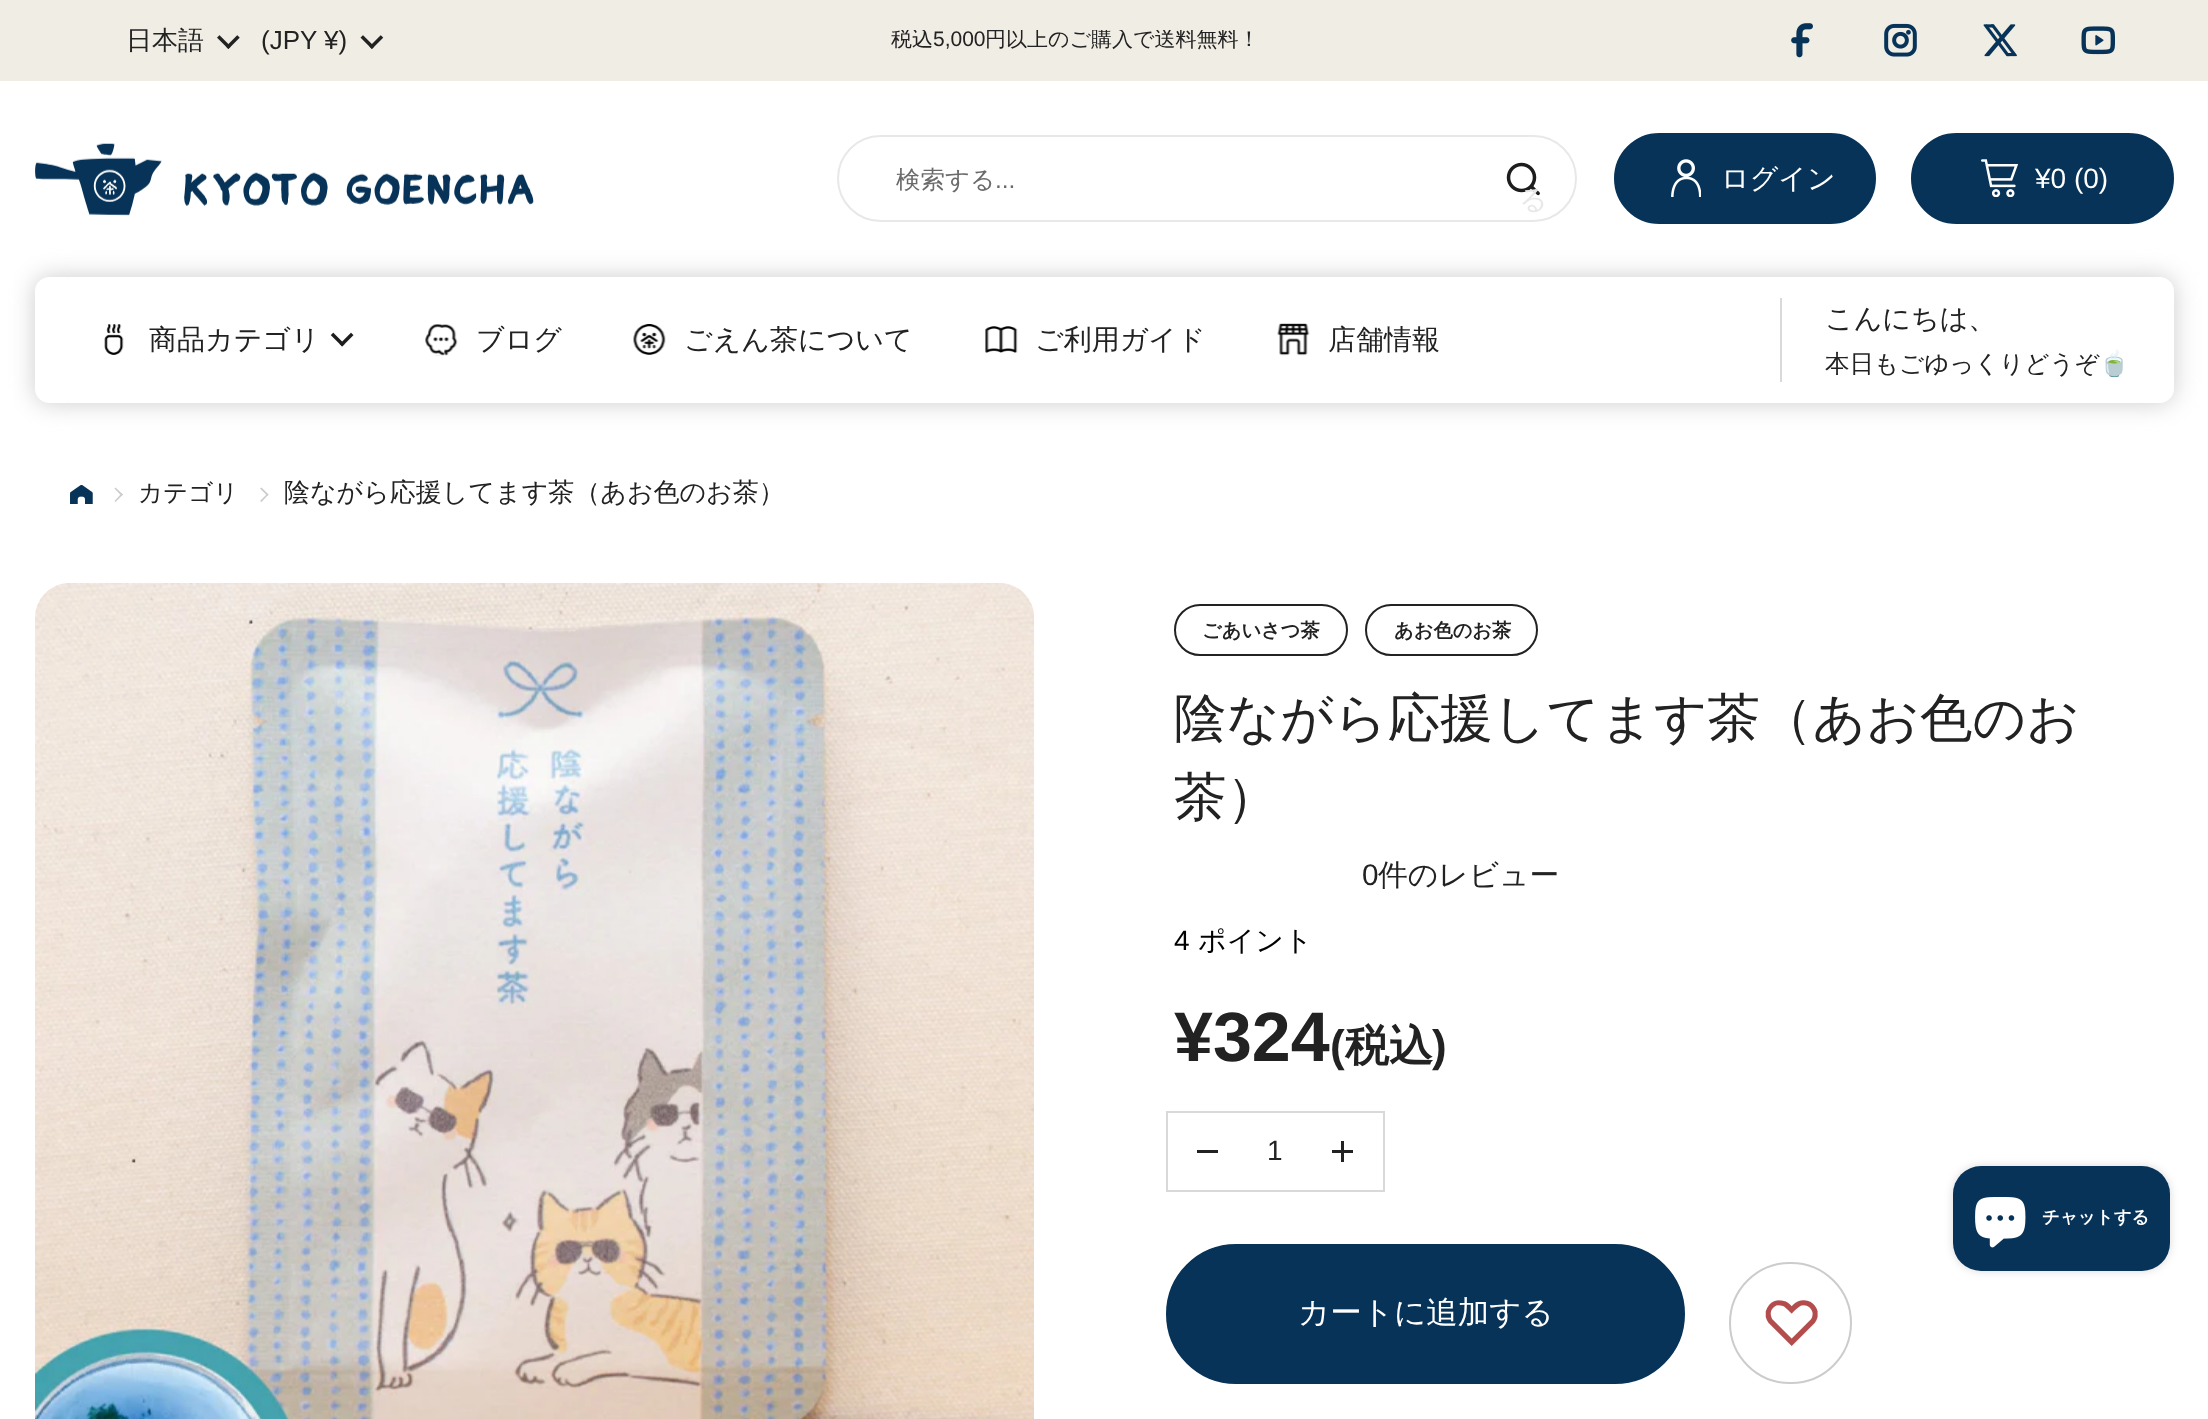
async function draw(canvas) {
  canvas.width = 2208
  canvas.height = 1419
  const ctx = canvas.getContext('2d')
  ctx.miterLimit = 4
  ctx.fontKerning = 'normal'
  async function loadImage(src) {
    const img = new Image()
    img.src = src
    await img.decode()
    return img
  }

  ctx.fillStyle = '#fff'
  ctx.fillRect(0, 0, 2208, 1419)
  ctx.fillStyle = '#f0ede4'
  ctx.fillRect(0, 0, 2208, 81)
  ctx.font = '500 26px WenQuanYi Zen Hei'
  ctx.fillStyle = '#222'
  ctx.fillText('日本語', 126, 49)
  ctx.drawImage(await loadImage('image0.png'), 217, 35, 23, 14)
  ctx.font = '26px Liberation Sans'
  ctx.fillText('(JPY ¥)', 261, 49)
  ctx.drawImage(await loadImage('image1.png'), 360, 35, 24, 14)
  ctx.save()
  ctx.beginPath()
  ctx.rect(389, 30, 1373, 23)
  ctx.clip()
  ctx.font = '500 21px WenQuanYi Zen Hei'
  ctx.fillText('税込', 891, 46)
  ctx.restore()
  ctx.font = '21px Liberation Sans'
  ctx.fillText('5,000', 933, 46)
  ctx.save()
  ctx.beginPath()
  ctx.rect(389, 30, 1373, 23)
  ctx.clip()
  ctx.font = '500 21px WenQuanYi Zen Hei'
  ctx.fillText('円以上のご購入で送料無料！', 985, 46)
  ctx.restore()
  ctx.drawImage(await loadImage('image2.png'), 1791, 23, 22, 35)
  ctx.drawImage(await loadImage('image3.png'), 1884, 23, 33, 34)
  ctx.drawImage(await loadImage('image4.png'), 1983, 24, 34, 33)
  ctx.drawImage(await loadImage('image5.png'), 2081, 26, 34, 29)
  ctx.drawImage(await loadImage('image6.png'), 35, 143, 499, 73)
  ctx.beginPath()
  ctx.roundRect(838, 136, 738, 85, 42.5)
  ctx.strokeStyle = '#e8e8e8'
  ctx.lineWidth = 2
  ctx.stroke()
  ctx.drawImage(await loadImage('image7.png'), 1506, 162, 34, 34)
  ctx.font = '500 24.5px WenQuanYi Zen Hei'
  ctx.fillStyle = '#6a6a6a'
  ctx.fillText('検索する', 896, 188)
  ctx.font = '24.5px Liberation Sans'
  ctx.fillText('...', 995, 188)
  ctx.font = '500 28px WenQuanYi Zen Hei'
  ctx.fillStyle = '#e8e8e8'
  ctx.fillText('る', 1519, 209)
  ctx.fillStyle = '#073358'
  ctx.beginPath()
  ctx.roundRect(1615, 134, 260, 89, 44.5)
  ctx.fill()
  ctx.strokeStyle = '#073358'
  ctx.stroke()
  ctx.drawImage(await loadImage('image8.png'), 1671, 159, 30, 38)
  ctx.fillStyle = '#fff'
  ctx.fillText('ログイン', 1721, 188)
  ctx.fillStyle = '#073358'
  ctx.beginPath()
  ctx.roundRect(1912, 134, 261, 89, 44.5)
  ctx.fill()
  ctx.stroke()
  ctx.drawImage(await loadImage('image9.png'), 1981, 159, 37, 38)
  ctx.font = '28px Liberation Sans'
  ctx.fillStyle = '#fff'
  ctx.fillText('¥0 (0)', 2035, 188)
  ctx.save()
  ctx.beginPath()
  ctx.moveTo(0, 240)
  ctx.lineTo(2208, 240)
  ctx.lineTo(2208, 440)
  ctx.lineTo(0, 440)
  ctx.closePath()
  ctx.moveTo(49, 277)
  ctx.lineTo(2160, 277)
  ctx.bezierCurveTo(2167.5, 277, 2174, 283.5, 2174, 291)
  ctx.lineTo(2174, 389)
  ctx.bezierCurveTo(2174, 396.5, 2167.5, 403, 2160, 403)
  ctx.lineTo(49, 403)
  ctx.bezierCurveTo(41.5, 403, 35, 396.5, 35, 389)
  ctx.lineTo(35, 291)
  ctx.bezierCurveTo(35, 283.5, 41.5, 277, 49, 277)
  ctx.closePath()
  ctx.clip('evenodd')
  ctx.fillStyle = '#ccc'
  ctx.filter = 'blur(12px)'
  ctx.beginPath()
  ctx.roundRect(35, 277, 2139, 126, 14)
  ctx.fill()
  ctx.filter = 'none'
  ctx.restore()
  ctx.drawImage(await loadImage('image10.png'), 104, 324, 20, 31)
  ctx.font = '500 28px WenQuanYi Zen Hei'
  ctx.fillStyle = '#222'
  ctx.fillText('商品カテゴリ', 149, 349)
  ctx.drawImage(await loadImage('image11.png'), 330, 332, 24, 15)
  ctx.drawImage(await loadImage('image12.png'), 425, 324, 33, 32)
  ctx.fillText('ブログ', 476, 349)
  ctx.drawImage(await loadImage('image13.png'), 633, 324, 33, 31)
  ctx.fillText('ごえん茶について', 684, 349)
  ctx.drawImage(await loadImage('image14.png'), 985, 326, 33, 27)
  ctx.fillText('ご利用ガイド', 1035, 349)
  ctx.drawImage(await loadImage('image15.png'), 1277, 323, 33, 33)
  ctx.fillText('店舗情報', 1328, 349)
  ctx.fillStyle = '#d9d9d9'
  ctx.fillRect(1780, 298, 2, 84)
  ctx.fillStyle = '#222'
  ctx.fillText('こんにちは、', 1825, 328)
  ctx.font = '500 24.5px WenQuanYi Zen Hei'
  ctx.fillText('本日もごゆっくりどうぞ', 1825, 372)
  ctx.font = '24.5px Noto Color Emoji'
  ctx.fillText('🍵', 2099, 372)
  ctx.drawImage(await loadImage('image16.png'), 70, 485, 23, 19)
  ctx.fillStyle = '#ccc'
  ctx.beginPath()
  ctx.moveTo(114.5, 488.5)
  ctx.lineTo(115.5, 487.5)
  ctx.lineTo(123, 494.5)
  ctx.lineTo(121.5, 496)
  ctx.closePath()
  ctx.fill()
  ctx.beginPath()
  ctx.moveTo(114.5, 501)
  ctx.lineTo(121.5, 493.5)
  ctx.lineTo(123, 494.5)
  ctx.lineTo(115.5, 502)
  ctx.closePath()
  ctx.fill()
  ctx.font = '500 24.5px WenQuanYi Zen Hei'
  ctx.fillStyle = '#222'
  ctx.fillText('カテゴリ', 138, 501)
  ctx.fillStyle = '#ccc'
  ctx.beginPath()
  ctx.moveTo(260, 488.5)
  ctx.lineTo(261.5, 487.5)
  ctx.lineTo(268.5, 494.5)
  ctx.lineTo(267.5, 496)
  ctx.closePath()
  ctx.fill()
  ctx.beginPath()
  ctx.moveTo(260, 501)
  ctx.lineTo(267.5, 493.5)
  ctx.lineTo(268.5, 494.5)
  ctx.lineTo(261.5, 502)
  ctx.closePath()
  ctx.fill()
  ctx.font = '500 26px WenQuanYi Zen Hei'
  ctx.fillStyle = '#222'
  ctx.fillText('陰ながら応援してます茶（あお色のお茶）', 284, 501)
  ctx.drawImage(await loadImage('image17.png'), 35, 583, 999, 836)
  ctx.beginPath()
  ctx.roundRect(1175, 605, 172, 50, 25)
  ctx.strokeStyle = '#222'
  ctx.stroke()
  ctx.font = 'bold 19.25px WenQuanYi Zen Hei'
  ctx.fillText('ごあいさつ茶', 1202, 637)
  ctx.beginPath()
  ctx.roundRect(1366, 605, 171, 50, 25)
  ctx.stroke()
  ctx.fillText('あお色のお茶', 1394, 637)
  ctx.font = '500 52.5px WenQuanYi Zen Hei'
  ctx.fillText('陰ながら応援してます茶（あお色のお', 1174, 736)
  ctx.fillText('茶）', 1174, 815)
  ctx.font = '29.75px Liberation Sans'
  ctx.fillText('0', 1362, 885)
  ctx.font = '500 29.75px WenQuanYi Zen Hei'
  ctx.fillText('件のレビュー', 1378, 885)
  ctx.font = '28px Liberation Sans'
  ctx.fillStyle = '#000'
  ctx.fillText('4', 1174, 950)
  ctx.font = '500 28px WenQuanYi Zen Hei'
  ctx.fillText('ポイント', 1198, 950)
  ctx.font = 'bold 70px Liberation Sans'
  ctx.fillStyle = '#222'
  ctx.fillText('¥324', 1174, 1061)
  ctx.font = 'bold 44px Liberation Sans'
  ctx.fillText('(', 1330, 1061)
  ctx.font = 'bold 44px WenQuanYi Zen Hei'
  ctx.fillText('税込', 1345, 1061)
  ctx.font = 'bold 44px Liberation Sans'
  ctx.fillText(')', 1432, 1061)
  ctx.fillStyle = '#d9d9d9'
  ctx.fillRect(1166, 1111, 218, 2)
  ctx.fillRect(1166, 1190, 154, 2)
  ctx.fillRect(1166, 1111, 2, 81)
  ctx.fillStyle = '#222'
  ctx.fillRect(1197, 1150, 21, 3)
  ctx.font = '28px Liberation Sans'
  ctx.fillText('1', 1267, 1160)
  ctx.fillStyle = '#d9d9d9'
  ctx.fillRect(1383, 1111, 2, 81)
  ctx.fillRect(1320, 1190, 64, 2)
  ctx.fillStyle = '#222'
  ctx.fillRect(1341, 1141, 3, 21)
  ctx.fillRect(1332, 1150, 21, 3)
  ctx.fillStyle = '#073358'
  ctx.beginPath()
  ctx.roundRect(1167, 1245, 517, 138, 69)
  ctx.fill()
  ctx.strokeStyle = '#073358'
  ctx.stroke()
  ctx.font = '500 31.5px WenQuanYi Zen Hei'
  ctx.fillStyle = '#fff'
  ctx.fillText('カートに追加する', 1298, 1323)
  ctx.beginPath()
  ctx.roundRect(1730, 1263, 121, 120, 60)
  ctx.strokeStyle = '#ccc'
  ctx.stroke()
  ctx.drawImage(await loadImage('image18.png'), 1765, 1300, 53, 46)
  ctx.fillStyle = '#00000026'
  ctx.filter = 'blur(4.5px)'
  ctx.beginPath()
  ctx.roundRect(1953, 1166, 217, 105, 28)
  ctx.fill()
  ctx.filter = 'none'
  ctx.fillStyle = '#073358'
  ctx.beginPath()
  ctx.roundRect(1953, 1166, 217, 105, 28)
  ctx.fill()
  ctx.drawImage(await loadImage('image19.png'), 1975, 1197, 51, 51)
  ctx.font = 'bold 17.5px WenQuanYi Zen Hei'
  ctx.fillStyle = '#fff'
  ctx.fillText('チャットする', 2042, 1223)
}

draw(document.querySelector('canvas'))
